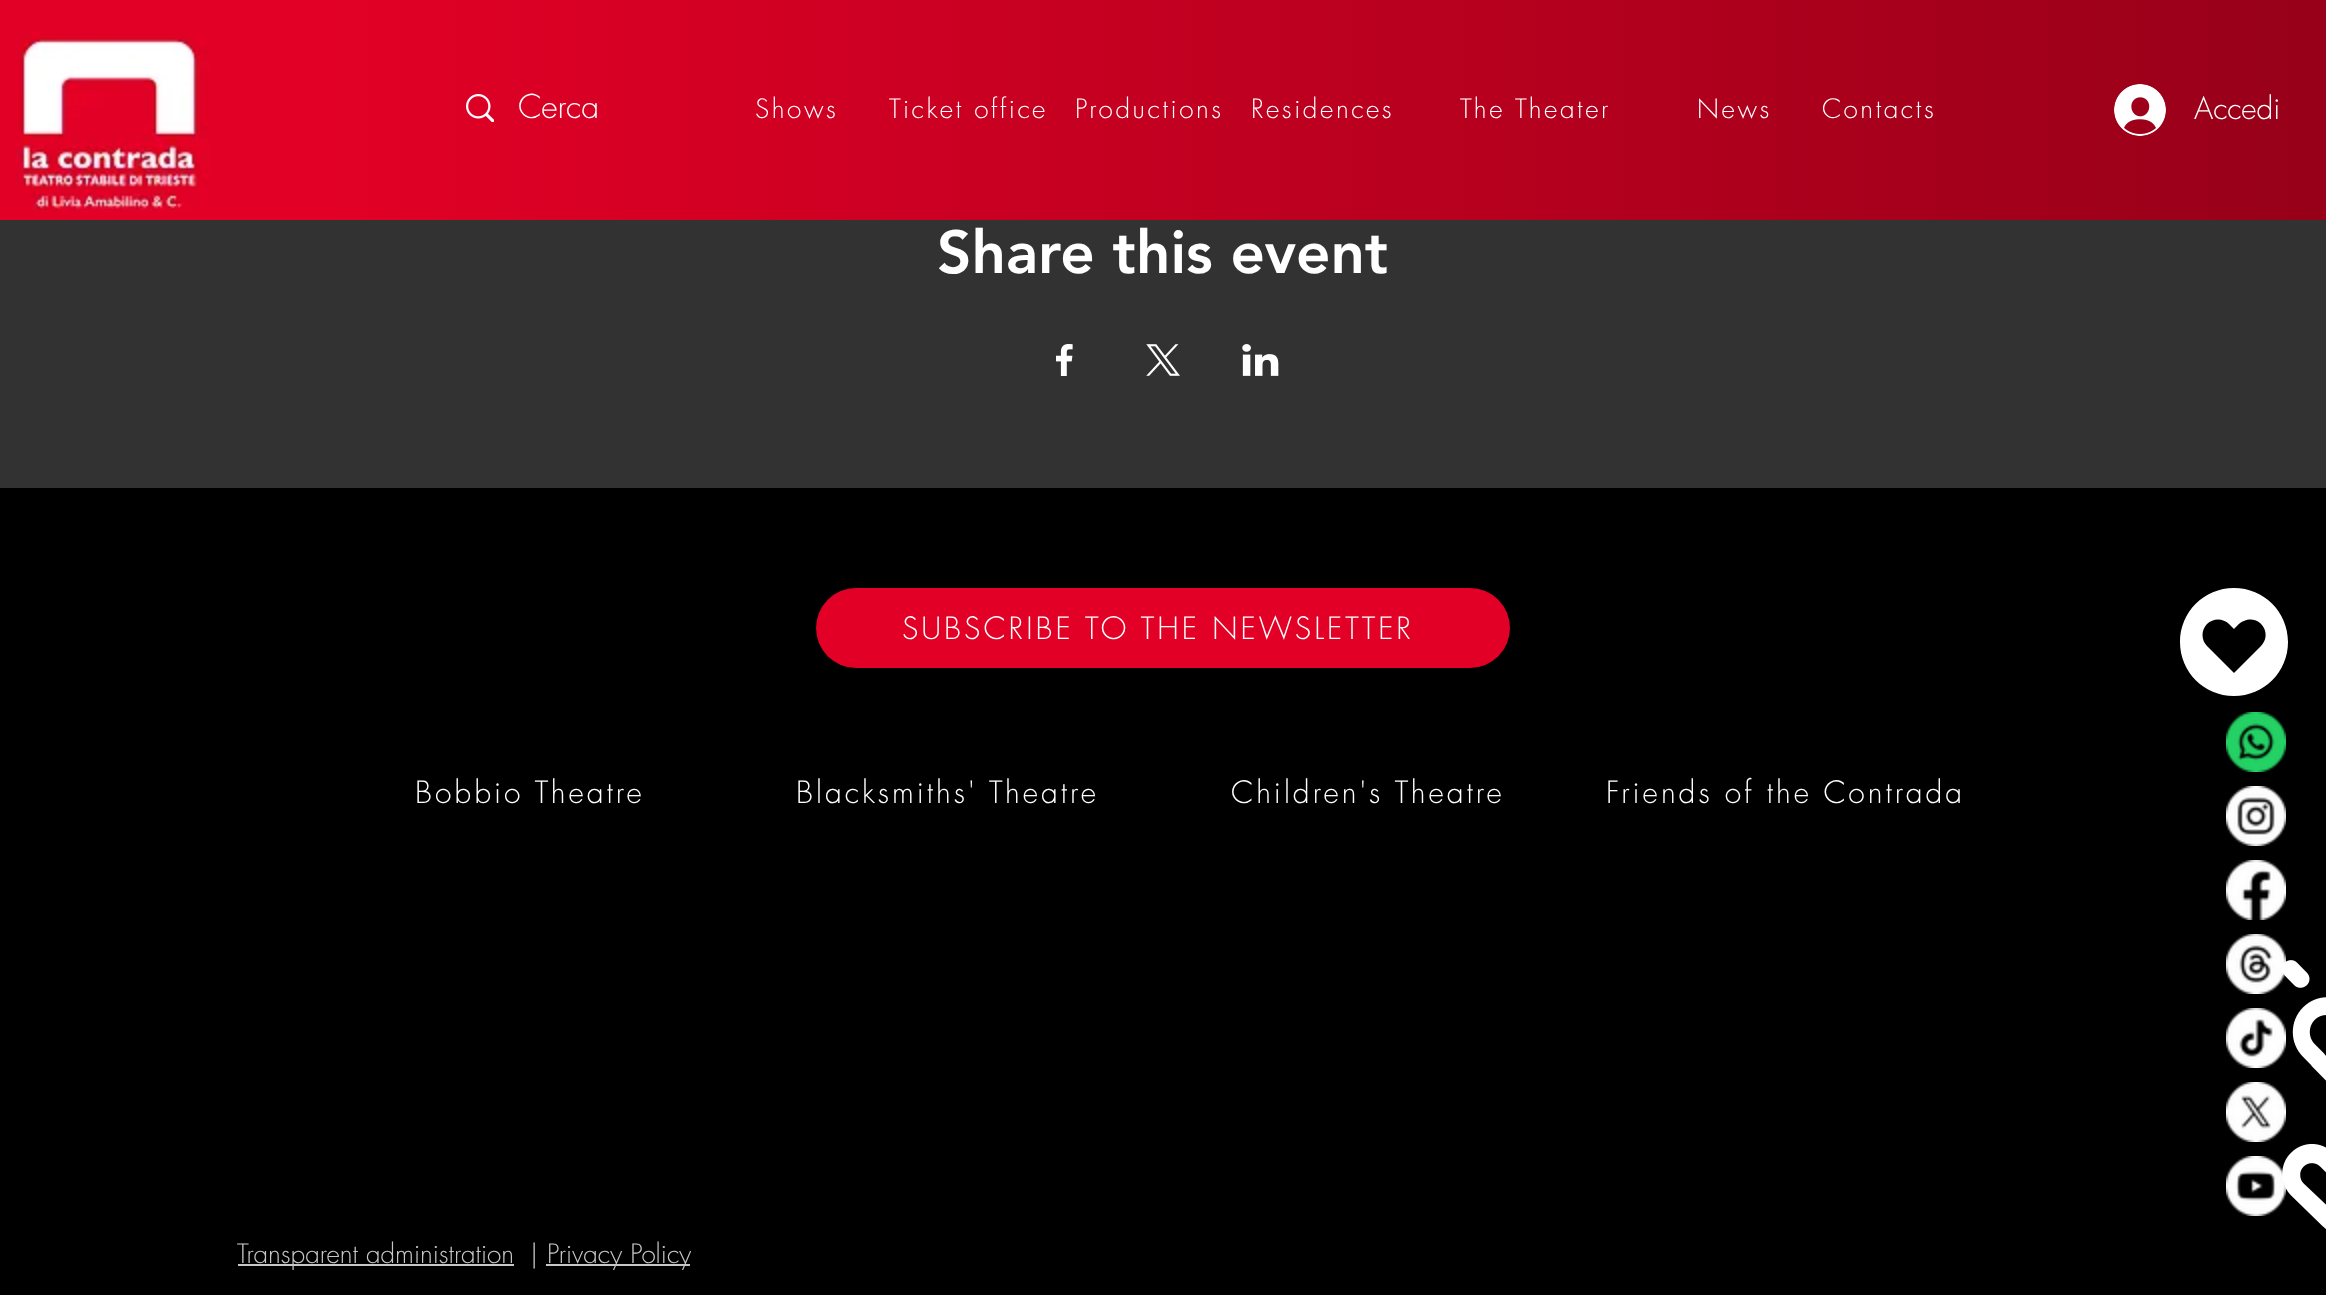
async function draw(canvas) {
  canvas.width = 2326
  canvas.height = 1295
  const ctx = canvas.getContext('2d')
  ctx.miterLimit = 4
  ctx.fontKerning = 'normal'
  async function loadImage(src) {
    const img = new Image()
    img.src = src
    await img.decode()
    return img
  }
  let gradient

  ctx.fillStyle = '#323232'
  ctx.fillRect(0, 0, 2326, 1295)
  gradient = ctx.createLinearGradient(0, 110, 2326, 110)
  gradient.addColorStop(0.14, '#e20026')
  gradient.addColorStop(1, '#970019')
  ctx.fillStyle = gradient
  ctx.fillRect(0, 0, 2326, 220)
  ctx.drawImage(await loadImage('image0.png'), 16, 32, 194, 180)
  ctx.drawImage(await loadImage('image1.png'), 466, 94, 28, 28)
  ctx.font = '300 32px futura'
  ctx.fillStyle = '#fff'
  ctx.fillText('Cerca', 518, 118)
  ctx.letterSpacing = '2.6px'
  ctx.font = '300 26px futura'
  ctx.fillText('Shows', 755, 118)
  ctx.fillText('Ticket office', 889, 118)
  ctx.fillText('Productions', 1075, 118)
  ctx.fillText('Residences', 1251, 118)
  ctx.fillText('The Theater', 1460, 118)
  ctx.fillText('News', 1697, 118)
  ctx.fillText('Contacts', 1822, 118)
  gradient = ctx.createLinearGradient(1163, 260, 1163, 220)
  gradient.addColorStop(0.21, '#32323200')
  gradient.addColorStop(1, '#32323259')
  ctx.fillStyle = gradient
  ctx.fillRect(940, 227, 447, 23)
  ctx.drawImage(await loadImage('image2.png'), 2114, 84, 52, 52)
  ctx.letterSpacing = '0px'
  ctx.font = '300 30px futura'
  ctx.fillStyle = '#fff'
  ctx.fillText('Accedi', 2194, 119)
  ctx.font = '900 60px "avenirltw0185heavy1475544"'
  ctx.fillText('Share this event', 937, 273)
  ctx.drawImage(await loadImage('image3.png'), 1056, 344, 17, 32)
  ctx.drawImage(await loadImage('image4.png'), 1146, 344, 34, 32)
  ctx.drawImage(await loadImage('image5.png'), 1242, 344, 37, 32)
  ctx.fillStyle = '#000'
  ctx.fillRect(0, 488, 2326, 807)
  ctx.fillStyle = '#e20026'
  ctx.beginPath()
  ctx.roundRect(816, 588, 694, 80, 40)
  ctx.fill()
  ctx.letterSpacing = '3px'
  ctx.font = '300 30px futura'
  ctx.fillStyle = '#fff'
  ctx.fillText('SUBSCRIBE TO THE NEWSLETTER', 902, 639)
  ctx.fillText('Bobbio Theatre', 415, 803)
  ctx.fillText('Blacksmiths\' Theatre', 796, 803)
  ctx.fillText('Children\'s Theatre', 1231, 803)
  ctx.fillText('Friends of the Contrada', 1606, 803)
  ctx.fillStyle = '#c7c7c7'
  ctx.fillRect(238, 1264, 276, 2)
  ctx.letterSpacing = '0px'
  ctx.font = '300 26px futura'
  ctx.fillText('Transparent administration', 237, 1263)
  ctx.fillText('|', 530, 1263)
  ctx.fillRect(546, 1264, 144, 2)
  ctx.fillText('Privacy Policy', 547, 1263)
  ctx.fillStyle = '#fff'
  ctx.beginPath()
  ctx.moveTo(2234, 588)
  ctx.bezierCurveTo(2204, 588, 2180, 612, 2180, 642)
  ctx.bezierCurveTo(2180, 672, 2204, 696, 2234, 696)
  ctx.bezierCurveTo(2264, 696, 2288, 672, 2288, 642)
  ctx.bezierCurveTo(2288, 612, 2264, 588, 2234, 588)
  ctx.closePath()
  ctx.moveTo(2261, 646)
  ctx.lineTo(2234, 673)
  ctx.lineTo(2207, 646)
  ctx.bezierCurveTo(2201, 640, 2201, 630, 2207, 624)
  ctx.bezierCurveTo(2213, 618, 2223, 618, 2229, 624)
  ctx.lineTo(2234, 629)
  ctx.bezierCurveTo(2237, 626, 2240, 622, 2244, 621)
  ctx.bezierCurveTo(2260, 614, 2273, 634, 2261, 646)
  ctx.closePath()
  ctx.fill()
  ctx.drawImage(await loadImage('image6.png'), 2226, 712, 60, 60)
  ctx.drawImage(await loadImage('image7.png'), 2226, 786, 60, 60)
  ctx.drawImage(await loadImage('image8.png'), 2226, 860, 60, 60)
  ctx.drawImage(await loadImage('image13.png'), 2281, 960, 45, 269)
  ctx.drawImage(await loadImage('image9.png'), 2226, 934, 60, 60)
  ctx.drawImage(await loadImage('image10.png'), 2226, 1008, 60, 60)
  ctx.drawImage(await loadImage('image11.png'), 2226, 1082, 60, 60)
  ctx.drawImage(await loadImage('image12.png'), 2226, 1156, 60, 60)
}

draw(document.querySelector('canvas'))
